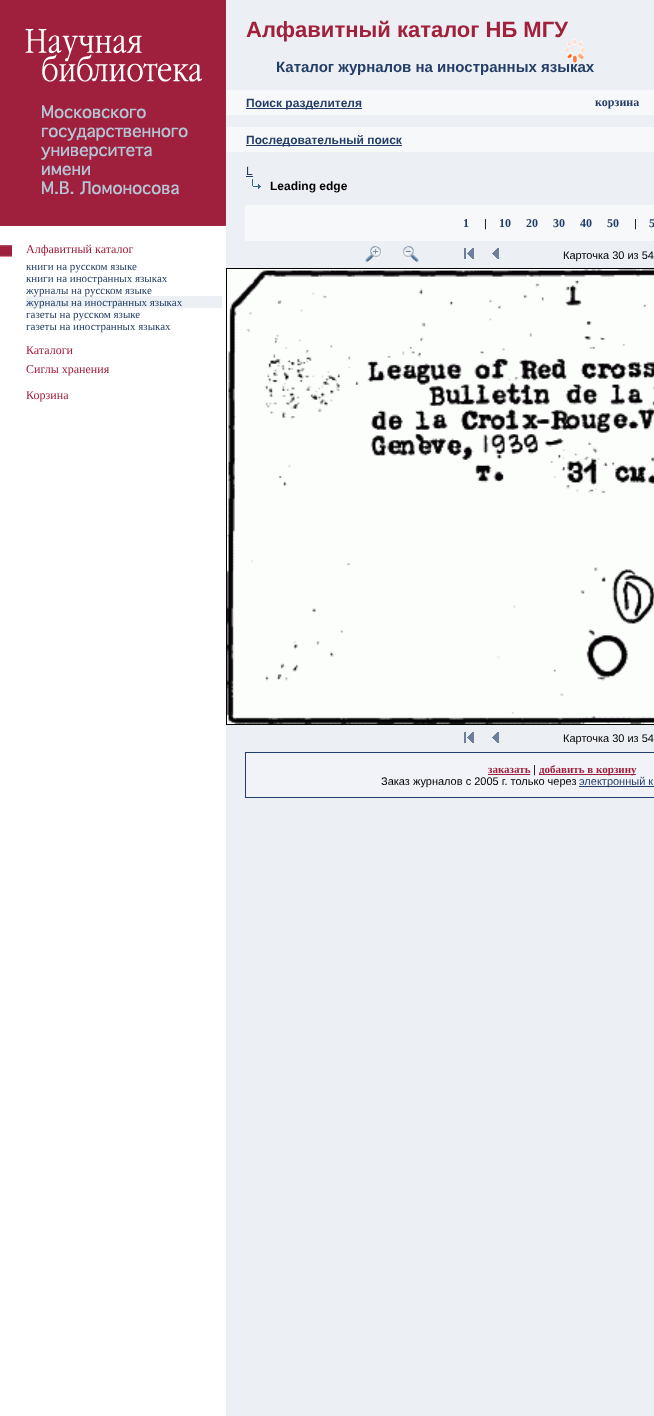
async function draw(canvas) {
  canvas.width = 654
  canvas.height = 1416
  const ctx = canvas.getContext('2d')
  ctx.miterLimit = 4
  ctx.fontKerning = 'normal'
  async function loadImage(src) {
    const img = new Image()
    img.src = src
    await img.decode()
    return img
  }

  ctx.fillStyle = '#eceff4'
  ctx.fillRect(0, 0, 654, 1416)
  ctx.fillStyle = '#fff'
  ctx.fillRect(0, 226, 226, 1190)
  ctx.drawImage(await loadImage('image0.png'), 0, 0, 226, 226)
  ctx.font = 'bold 22px Liberation Sans'
  ctx.fillStyle = '#a1203c'
  ctx.fillText('Алфавитный каталог НБ МГУ', 246, 37)
  ctx.font = 'bold 15px Liberation Sans'
  ctx.fillStyle = '#233d66'
  ctx.fillText('Каталог журналов на иностранных языках', 276, 72)
  ctx.fillStyle = '#f7f8fa'
  ctx.fillRect(226, 90, 428, 25)
  ctx.fillStyle = '#243c6a'
  ctx.fillRect(246, 108, 116, 1)
  ctx.font = 'bold 12px Liberation Sans'
  ctx.fillStyle = '#233d66'
  ctx.fillText('Поиск разделителя', 246, 107)
  ctx.font = 'bold 12px Liberation Serif'
  ctx.fillText('корзина', 595, 106)
  ctx.fillStyle = '#f7f8fa'
  ctx.fillRect(226, 127, 428, 25)
  ctx.fillStyle = '#243c6a'
  ctx.fillRect(246, 145, 156, 1)
  ctx.font = 'bold 12px Liberation Sans'
  ctx.fillStyle = '#233d66'
  ctx.fillText('Последовательный поиск', 246, 144)
  ctx.font = '12px Liberation Sans'
  ctx.fillText('L', 246, 175)
  ctx.fillStyle = '#243c6a'
  ctx.fillRect(246, 176, 7, 1)
  ctx.drawImage(await loadImage('image1.png'), 252, 179, 9, 10)
  ctx.font = 'bold 12px Liberation Sans'
  ctx.fillStyle = '#000'
  ctx.fillText('Leading edge', 270, 190)
  ctx.fillStyle = '#f7f8fa'
  ctx.fillRect(245, 205, 409, 36)
  ctx.font = 'bold 12px Liberation Serif'
  ctx.fillStyle = '#233d66'
  ctx.fillText('1', 463, 227)
  ctx.font = '11px Liberation Sans'
  ctx.fillStyle = '#000'
  ctx.fillText('|', 484, 227)
  ctx.font = 'bold 12px Liberation Serif'
  ctx.fillStyle = '#233d66'
  ctx.fillText('10', 499, 227)
  ctx.fillText('20', 526, 227)
  ctx.fillText('30', 553, 227)
  ctx.fillText('40', 580, 227)
  ctx.fillText('50', 607, 227)
  ctx.font = '11px Liberation Sans'
  ctx.fillStyle = '#000'
  ctx.fillText('|', 634, 227)
  ctx.font = 'bold 12px Liberation Serif'
  ctx.fillStyle = '#233d66'
  ctx.fillText('5', 649, 227)
  ctx.drawImage(await loadImage('image2.png'), 365, 246, 16, 16)
  ctx.drawImage(await loadImage('image3.png'), 403, 246, 16, 16)
  ctx.drawImage(await loadImage('image4.png'), 464, 248, 10, 11)
  ctx.drawImage(await loadImage('image5.png'), 492, 248, 7, 11)
  ctx.font = '11px Liberation Sans'
  ctx.fillStyle = '#000'
  ctx.fillText('Карточка 30 из 54', 563, 259)
  ctx.fillRect(226, 268, 428, 1)
  ctx.fillRect(226, 724, 428, 1)
  ctx.fillRect(226, 268, 1, 457)
  ctx.drawImage(await loadImage('image6.png'), 227, 269, 427, 455)
  ctx.drawImage(await loadImage('image4.png'), 464, 732, 10, 11)
  ctx.drawImage(await loadImage('image5.png'), 492, 732, 7, 11)
  ctx.fillText('Карточка 30 из 54', 563, 742)
  ctx.fillStyle = '#f1f3f8'
  ctx.fillRect(246, 753, 408, 44)
  ctx.fillStyle = '#243c6a'
  ctx.fillRect(245, 752, 409, 1)
  ctx.fillRect(245, 797, 409, 1)
  ctx.fillRect(245, 752, 1, 46)
  ctx.font = 'bold 11px Liberation Serif'
  ctx.fillStyle = '#a1203c'
  ctx.fillText('заказать', 488, 773)
  ctx.fillStyle = '#9e203d'
  ctx.fillRect(488, 774, 42, 1)
  ctx.font = '11px Liberation Sans'
  ctx.fillStyle = '#000'
  ctx.fillText('|', 533, 773)
  ctx.fillStyle = '#9e203d'
  ctx.fillRect(539, 774, 97, 1)
  ctx.font = 'bold 11px Liberation Serif'
  ctx.fillStyle = '#a1203c'
  ctx.fillText('добавить в корзину', 539, 773)
  ctx.font = '11px Liberation Sans'
  ctx.fillStyle = '#000'
  ctx.fillText('Заказ журналов с 2005 г. только через', 381, 785)
  ctx.fillStyle = '#243c6a'
  ctx.fillRect(579, 786, 75, 1)
  ctx.fillStyle = '#233d66'
  ctx.fillText('электронный к', 579, 785)
  ctx.drawImage(await loadImage('image7.png'), 565, 39, 21, 24)
  ctx.drawImage(await loadImage('image8.png'), 0, 245, 12, 12)
  ctx.font = '12px Liberation Serif'
  ctx.fillStyle = '#a1203c'
  ctx.fillText('Алфавитный каталог', 26, 253)
  ctx.font = '11px Liberation Serif'
  ctx.fillStyle = '#233d66'
  ctx.fillText('книги на русском языке', 26, 270)
  ctx.fillText('книги на иностранных языках', 26, 282)
  ctx.fillStyle = '#eceff4'
  ctx.fillRect(26, 296, 196, 12)
  ctx.fillStyle = '#233d66'
  ctx.fillText('журналы на русском языке', 26, 294)
  ctx.fillText('журналы на иностранных языках', 26, 306)
  ctx.fillText('газеты на русском языке', 26, 318)
  ctx.fillText('газеты на иностранных языках', 26, 330)
  ctx.font = '12px Liberation Serif'
  ctx.fillStyle = '#a1203c'
  ctx.fillText('Каталоги', 26, 354)
  ctx.fillText('Сиглы хранения', 26, 373)
  ctx.fillText('Корзина', 26, 399)
}

draw(document.querySelector('canvas'))
